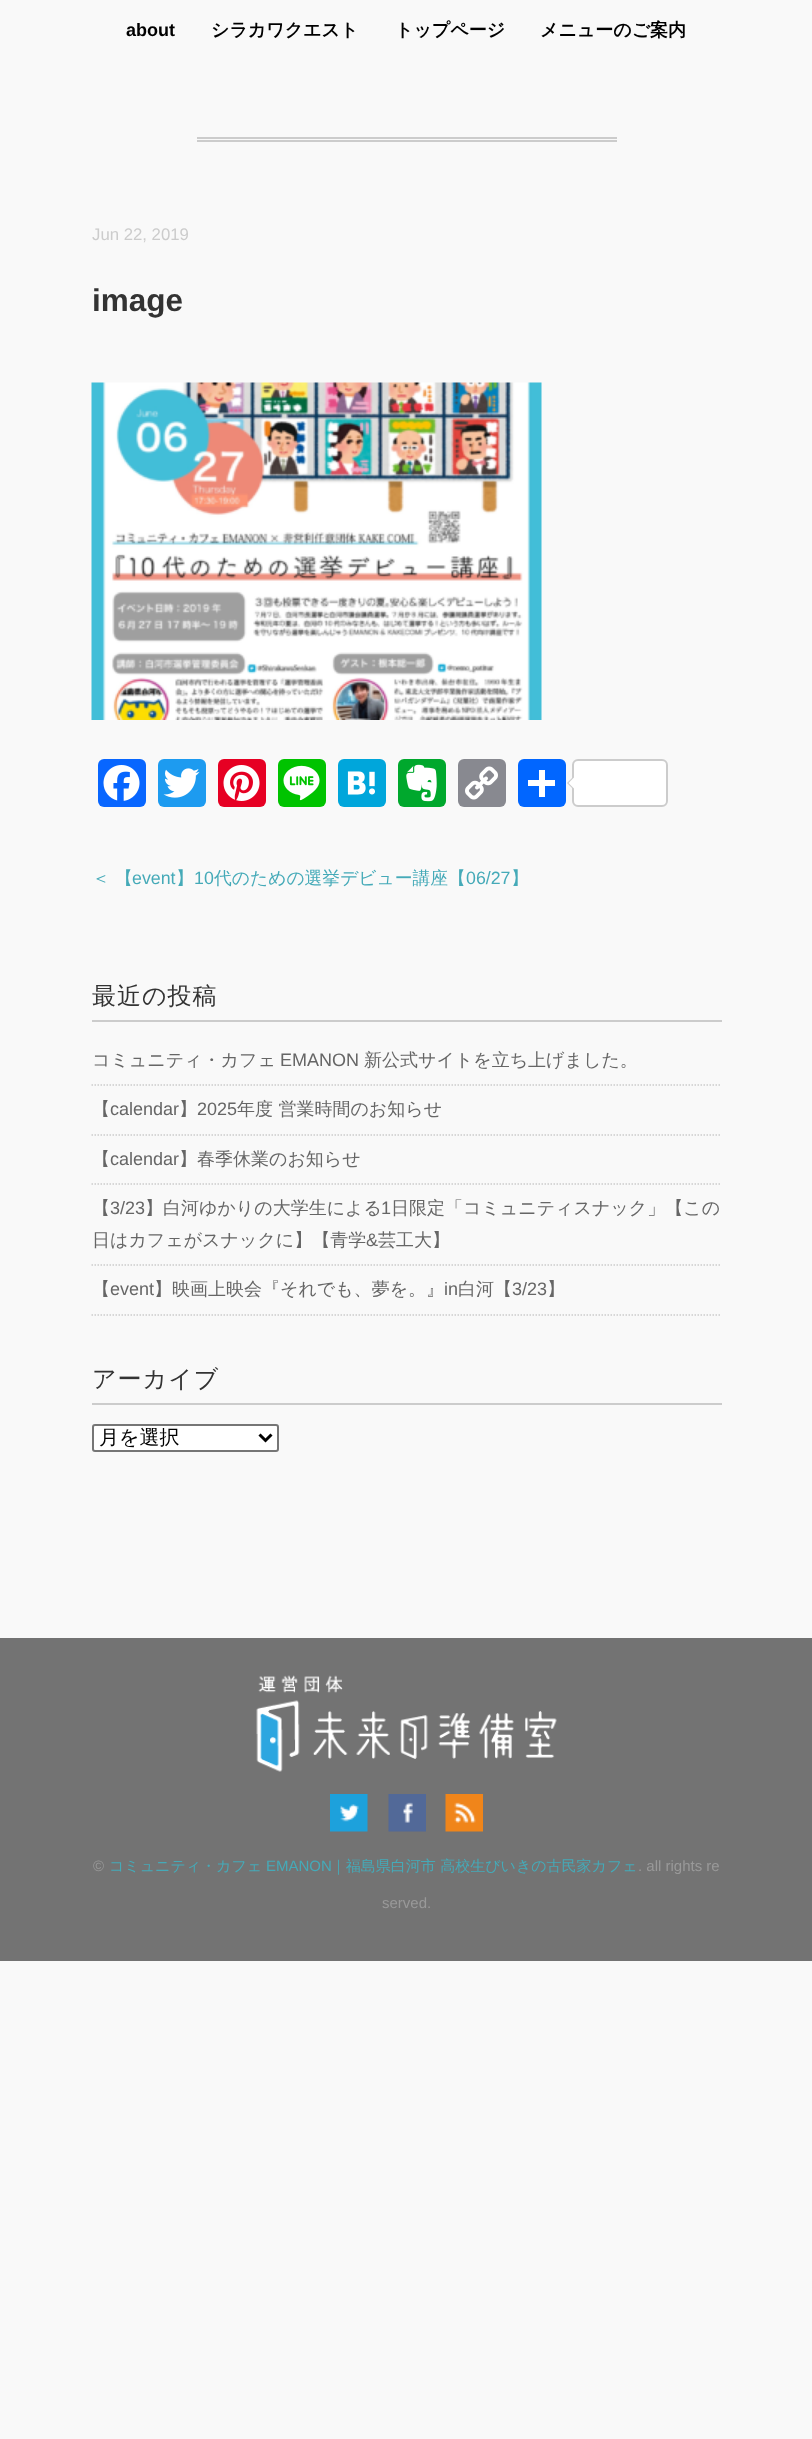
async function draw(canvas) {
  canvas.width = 812
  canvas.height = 2439
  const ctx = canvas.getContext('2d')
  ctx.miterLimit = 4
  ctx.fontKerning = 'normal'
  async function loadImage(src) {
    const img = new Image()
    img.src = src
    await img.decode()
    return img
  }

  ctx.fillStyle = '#f9f9f9'
  ctx.fillRect(0, 0, 812, 2439)
  ctx.font = 'bold 18px Liberation Sans'
  ctx.fillStyle = '#000'
  ctx.fillText('about', 126, 36)
  ctx.font = 'bold 18px WenQuanYi Zen Hei'
  ctx.fillText('シラカワクエスト', 211, 36)
  ctx.fillText('トップページ', 395, 36)
  ctx.fillText('メニューのご案内', 540, 36)
  ctx.fillStyle = '#ccc'
  ctx.fillRect(197, 137, 420, 2)
  ctx.fillRect(197, 140, 420, 2)
  ctx.font = '16.75px Liberation Sans'
  ctx.fillText('Jun 22, 2019', 92, 240)
  ctx.font = 'bold 31.5px Liberation Sans'
  ctx.fillStyle = '#333'
  ctx.fillText('image', 92, 311)
  ctx.drawImage(await loadImage('image0.png'), 91, 382, 451, 338)
  ctx.fillStyle = '#0866ff'
  ctx.beginPath()
  ctx.roundRect(98, 759, 48, 48, 6)
  ctx.fill()
  ctx.drawImage(await loadImage('image1.png'), 103, 765, 37, 36)
  ctx.fillStyle = '#1d9bf0'
  ctx.beginPath()
  ctx.roundRect(158, 759, 48, 48, 6)
  ctx.fill()
  ctx.drawImage(await loadImage('image2.png'), 163, 768, 37, 30)
  ctx.fillStyle = '#e60023'
  ctx.beginPath()
  ctx.roundRect(218, 759, 48, 48, 6)
  ctx.fill()
  ctx.drawImage(await loadImage('image3.png'), 223, 765, 37, 36)
  ctx.fillStyle = '#00c300'
  ctx.beginPath()
  ctx.roundRect(278, 759, 48, 48, 6)
  ctx.fill()
  ctx.drawImage(await loadImage('image4.png'), 283, 765, 37, 36)
  ctx.fillStyle = '#00a6db'
  ctx.beginPath()
  ctx.roundRect(338, 759, 48, 48, 6)
  ctx.fill()
  ctx.drawImage(await loadImage('image5.png'), 347, 771, 28, 24)
  ctx.fillStyle = '#00a82d'
  ctx.beginPath()
  ctx.roundRect(398, 759, 48, 48, 6)
  ctx.fill()
  ctx.drawImage(await loadImage('image6.png'), 406, 764, 31, 38)
  ctx.fillStyle = '#888990'
  ctx.beginPath()
  ctx.roundRect(458, 759, 48, 48, 6)
  ctx.fill()
  ctx.drawImage(await loadImage('image7.png'), 465, 766, 33, 34)
  ctx.fillStyle = '#0166ff'
  ctx.beginPath()
  ctx.roundRect(518, 759, 48, 48, 6)
  ctx.fill()
  ctx.fillStyle = '#fff'
  ctx.fillRect(539, 770, 6, 27)
  ctx.fillRect(528, 780, 27, 6)
  ctx.beginPath()
  ctx.roundRect(573, 760, 94, 46, 5)
  ctx.fill()
  ctx.strokeStyle = '#ccc'
  ctx.lineWidth = 2
  ctx.stroke()
  ctx.fillStyle = '#ccc'
  ctx.beginPath()
  ctx.moveTo(573, 777)
  ctx.lineTo(573, 789)
  ctx.lineTo(567, 783)
  ctx.closePath()
  ctx.fill()
  ctx.fillStyle = '#fff'
  ctx.beginPath()
  ctx.moveTo(574.5, 777)
  ctx.lineTo(574.5, 789)
  ctx.lineTo(568.5, 783)
  ctx.closePath()
  ctx.fill()
  ctx.font = '500 17.8px WenQuanYi Zen Hei'
  ctx.fillStyle = '#45aab8'
  ctx.fillText('＜ 【', 92, 884)
  ctx.font = '17.8px Liberation Sans'
  ctx.fillText('event', 132, 884)
  ctx.font = '500 17.8px WenQuanYi Zen Hei'
  ctx.fillText('】', 176, 884)
  ctx.font = '17.8px Liberation Sans'
  ctx.fillText('10', 194, 884)
  ctx.font = '500 17.8px WenQuanYi Zen Hei'
  ctx.fillText('代のための選挙デビュー講座【', 214, 884)
  ctx.font = '17.8px Liberation Sans'
  ctx.fillText('06/27', 466, 884)
  ctx.font = '500 17.8px WenQuanYi Zen Hei'
  ctx.fillText('】', 511, 884)
  ctx.fillStyle = '#ccc'
  ctx.fillRect(92, 1020, 630, 2)
  ctx.letterSpacing = '1px'
  ctx.font = '500 24px WenQuanYi Zen Hei'
  ctx.fillStyle = '#333'
  ctx.fillText('最近の投稿', 92, 1004)
  ctx.beginPath()
  ctx.moveTo(91.5, 1085)
  ctx.lineTo(721.5, 1085)
  ctx.lineWidth = 1.5
  ctx.setLineDash([1.5, 1.5])
  ctx.stroke()
  ctx.letterSpacing = '0px'
  ctx.font = '500 18px WenQuanYi Zen Hei'
  ctx.fillStyle = '#666'
  ctx.fillText('コミュニティ・カフェ', 92, 1066)
  ctx.font = '18px Liberation Sans'
  ctx.fillText('EMANON', 280, 1066)
  ctx.font = '500 18px WenQuanYi Zen Hei'
  ctx.fillText('新公式サイトを立ち上げました。', 364, 1066)
  ctx.beginPath()
  ctx.moveTo(91.5, 1135)
  ctx.lineTo(721.5, 1135)
  ctx.stroke()
  ctx.fillText('【', 92, 1115)
  ctx.font = '18px Liberation Sans'
  ctx.fillText('calendar', 110, 1115)
  ctx.font = '500 18px WenQuanYi Zen Hei'
  ctx.fillText('】', 179, 1115)
  ctx.font = '18px Liberation Sans'
  ctx.fillText('2025', 197, 1115)
  ctx.font = '500 18px WenQuanYi Zen Hei'
  ctx.fillText('年度 営業時間のお知らせ', 237, 1115)
  ctx.beginPath()
  ctx.moveTo(91.5, 1184)
  ctx.lineTo(721.5, 1184)
  ctx.stroke()
  ctx.fillText('【', 92, 1165)
  ctx.font = '18px Liberation Sans'
  ctx.fillText('calendar', 110, 1165)
  ctx.font = '500 18px WenQuanYi Zen Hei'
  ctx.fillText('】春季休業のお知らせ', 179, 1165)
  ctx.beginPath()
  ctx.moveTo(91.5, 1265)
  ctx.lineTo(721.5, 1265)
  ctx.stroke()
  ctx.fillText('【', 92, 1214)
  ctx.font = '18px Liberation Sans'
  ctx.fillText('3/23', 110, 1214)
  ctx.font = '500 18px WenQuanYi Zen Hei'
  ctx.fillText('】白河ゆかりの大学生による', 145, 1214)
  ctx.font = '18px Liberation Sans'
  ctx.fillText('1', 381, 1214)
  ctx.font = '500 18px WenQuanYi Zen Hei'
  ctx.fillText('日限定「コミュニティスナック」【この', 391, 1214)
  ctx.fillText('日はカフェがスナックに】【青学', 92, 1246)
  ctx.font = '18px Liberation Sans'
  ctx.fillText('&', 366, 1246)
  ctx.font = '500 18px WenQuanYi Zen Hei'
  ctx.fillText('芸工大】', 378, 1246)
  ctx.beginPath()
  ctx.moveTo(91.5, 1315)
  ctx.lineTo(721.5, 1315)
  ctx.stroke()
  ctx.fillText('【', 92, 1295)
  ctx.font = '18px Liberation Sans'
  ctx.fillText('event', 110, 1295)
  ctx.font = '500 18px WenQuanYi Zen Hei'
  ctx.fillText('】映画上映会『それでも、夢を。』', 154, 1295)
  ctx.font = '18px Liberation Sans'
  ctx.fillText('in', 444, 1295)
  ctx.font = '500 18px WenQuanYi Zen Hei'
  ctx.fillText('白河【', 458, 1295)
  ctx.font = '18px Liberation Sans'
  ctx.fillText('3/23', 512, 1295)
  ctx.font = '500 18px WenQuanYi Zen Hei'
  ctx.fillText('】', 547, 1295)
  ctx.fillStyle = '#ccc'
  ctx.fillRect(92, 1403, 630, 2)
  ctx.letterSpacing = '1px'
  ctx.font = '500 24px WenQuanYi Zen Hei'
  ctx.fillStyle = '#333'
  ctx.fillText('アーカイブ', 92, 1387)
  ctx.fillStyle = '#fff'
  ctx.beginPath()
  ctx.roundRect(93, 1425, 185, 26, 2)
  ctx.fill()
  ctx.strokeStyle = '#767676'
  ctx.lineWidth = 2
  ctx.setLineDash([])
  ctx.stroke()
  ctx.beginPath()
  ctx.moveTo(259.5, 1434.5)
  ctx.lineTo(265.5, 1440.5)
  ctx.lineTo(271.5, 1434.5)
  ctx.strokeStyle = '#000'
  ctx.lineWidth = 3
  ctx.stroke()
  ctx.letterSpacing = '0px'
  ctx.font = '500 20px WenQuanYi Zen Hei'
  ctx.fillStyle = '#000'
  ctx.fillText('月を選択', 99, 1444)
  ctx.fillStyle = '#737373'
  ctx.fillRect(0, 1638, 812, 323)
  ctx.drawImage(await loadImage('image8.png'), 256, 1675, 301, 97)
  ctx.drawImage(await loadImage('image9.png'), 330, 1794, 38, 38)
  ctx.drawImage(await loadImage('image10.png'), 388, 1794, 38, 38)
  ctx.drawImage(await loadImage('image11.png'), 445, 1794, 38, 38)
  ctx.font = '15px Liberation Sans'
  ctx.fillStyle = '#999'
  ctx.fillText('©', 93, 1871)
  ctx.font = '500 15px WenQuanYi Zen Hei'
  ctx.fillStyle = '#45aab8'
  ctx.fillText('コミュニティ・カフェ', 109, 1871)
  ctx.font = '15px Liberation Sans'
  ctx.fillText('EMANON', 266, 1871)
  ctx.font = '500 15px WenQuanYi Zen Hei'
  ctx.fillText('｜福島県白河市 高校生びいきの古民家カフェ', 331, 1871)
  ctx.font = '15px Liberation Sans'
  ctx.fillStyle = '#999'
  ctx.fillText('. all rights re', 638, 1871)
  ctx.fillText('served.', 382, 1908)
}

draw(document.querySelector('canvas'))
